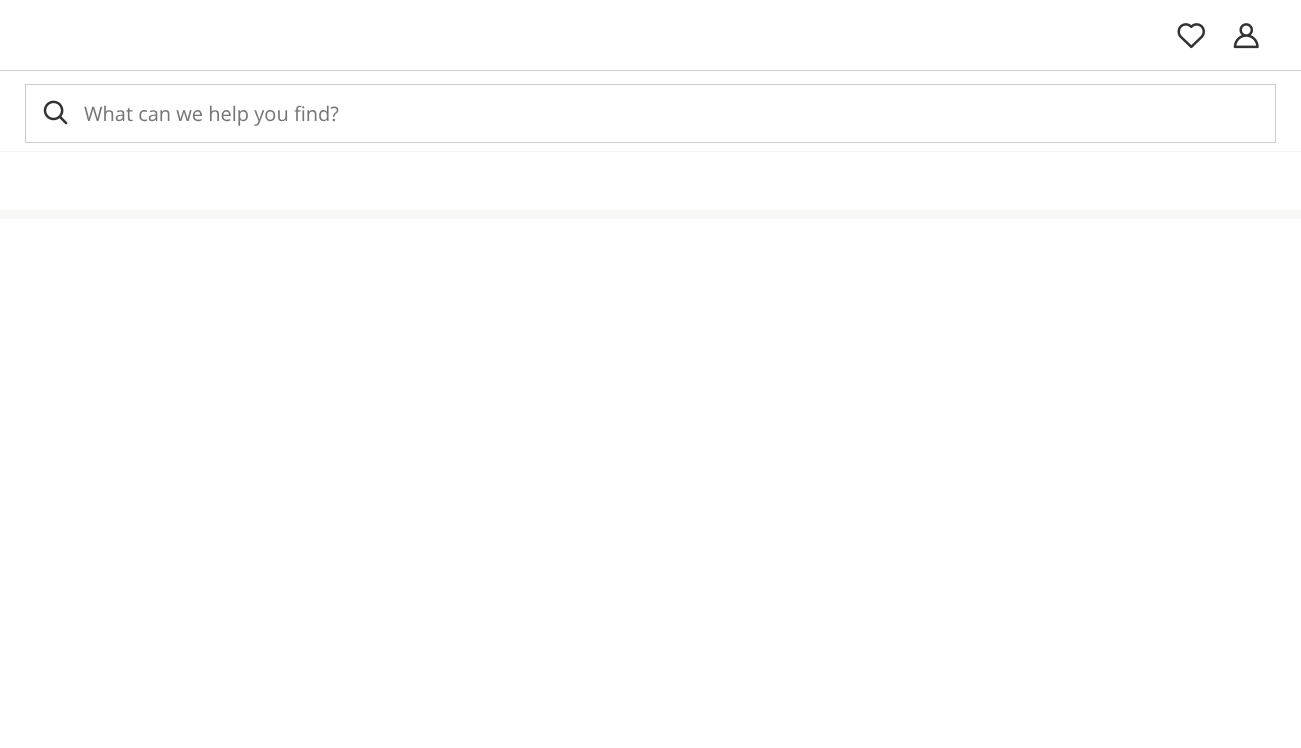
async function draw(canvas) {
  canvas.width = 1301
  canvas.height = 748
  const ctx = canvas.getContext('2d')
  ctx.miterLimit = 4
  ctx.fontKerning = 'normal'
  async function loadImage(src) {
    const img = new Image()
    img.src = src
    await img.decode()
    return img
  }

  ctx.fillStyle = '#fff'
  ctx.fillRect(0, 0, 1301, 748)
  ctx.fillStyle = '#ccc'
  ctx.fillRect(0, 70, 1301, 1)
  ctx.drawImage(await loadImage('image0.png'), 1177, 23, 28, 26)
  ctx.drawImage(await loadImage('image1.png'), 1233, 23, 26, 26)
  ctx.strokeStyle = '#ccc'
  ctx.strokeRect(25.5, 84.5, 1250, 58)
  ctx.drawImage(await loadImage('image2.png'), 43, 100, 25, 25)
  ctx.font = '20px Open Sans'
  ctx.fillStyle = '#757575'
  ctx.fillText('What can we help you find?', 84, 121)
  ctx.fillStyle = '#f4f4f4'
  ctx.fillRect(0, 151, 1301, 1)
  ctx.fillStyle = '#f7f7f5'
  ctx.fillRect(0, 210, 1301, 9)
}

draw(document.querySelector('canvas'))
